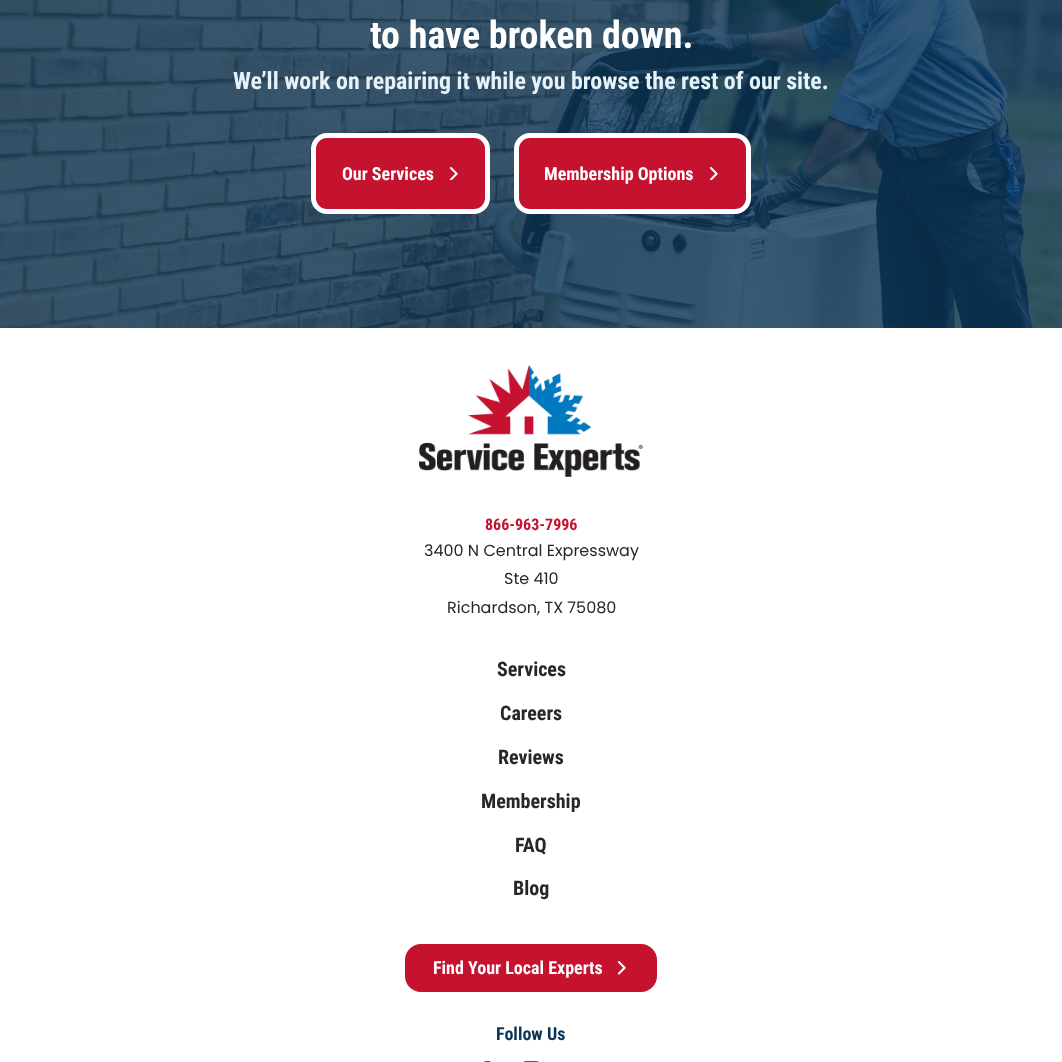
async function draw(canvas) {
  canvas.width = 1062
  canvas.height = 1062
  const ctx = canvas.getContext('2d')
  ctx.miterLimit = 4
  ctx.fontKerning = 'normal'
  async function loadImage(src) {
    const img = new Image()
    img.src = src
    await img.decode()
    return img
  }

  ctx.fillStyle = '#fff'
  ctx.fillRect(0, 0, 1062, 1062)
  ctx.drawImage(await loadImage('image0.png'), 0, 0, 1062, 328)
  ctx.font = 'bold 38px Roboto Condensed'
  ctx.fillText('to have broken down.', 370, 48)
  ctx.font = 'bold 23.9px Roboto Condensed'
  ctx.fillStyle = '#e6f2f9'
  ctx.fillText('We’ll work on repairing it while you browse the rest of our site.', 233, 89)
  ctx.fillStyle = '#c4122f'
  ctx.beginPath()
  ctx.roundRect(313.5, 135.5, 174, 76, 13.5)
  ctx.fill()
  ctx.strokeStyle = '#fff'
  ctx.lineWidth = 5
  ctx.stroke()
  ctx.font = 'bold 18px Roboto Condensed'
  ctx.fillStyle = '#fff'
  ctx.fillText('Our Services', 342, 180)
  ctx.drawImage(await loadImage('image1.png'), 449, 167, 9, 13)
  ctx.fillStyle = '#c4122f'
  ctx.beginPath()
  ctx.roundRect(516.5, 135.5, 232, 76, 13.5)
  ctx.fill()
  ctx.stroke()
  ctx.fillStyle = '#fff'
  ctx.fillText('Membership Options', 544, 180)
  ctx.drawImage(await loadImage('image1.png'), 709, 167, 9, 13)
  ctx.drawImage(await loadImage('image2.png'), 419, 365, 224, 112)
  ctx.font = 'bold 16px Roboto Condensed'
  ctx.fillStyle = '#c4122f'
  ctx.fillText('866-963-7996', 485, 530)
  ctx.font = '16px Poppins'
  ctx.fillStyle = '#272727'
  ctx.fillText('3400 N Central Expressway', 424, 556)
  ctx.fillText('Ste 410', 504, 584)
  ctx.fillText('Richardson, TX 75080', 447, 613)
  ctx.font = 'bold 20px Roboto Condensed'
  ctx.fillText('Services', 497, 676)
  ctx.fillText('Careers', 500, 720)
  ctx.fillText('Reviews', 498, 764)
  ctx.fillText('Membership', 481, 808)
  ctx.fillText('FAQ', 515, 852)
  ctx.fillText('Blog', 513, 895)
  ctx.fillStyle = '#c4122f'
  ctx.beginPath()
  ctx.roundRect(406.5, 945.5, 249, 45, 14.5)
  ctx.fill()
  ctx.strokeStyle = '#c4122f'
  ctx.lineWidth = 3
  ctx.stroke()
  ctx.font = 'bold 18px Roboto Condensed'
  ctx.fillStyle = '#fff'
  ctx.fillText('Find Your Local Experts', 433, 974)
  ctx.drawImage(await loadImage('image3.png'), 617, 961, 9, 14)
  ctx.fillStyle = '#0a3557'
  ctx.fillText('Follow Us', 496, 1040)
  ctx.drawImage(await loadImage('image4.png'), 483, 1061, 8, 1)
  ctx.drawImage(await loadImage('image5.png'), 523, 1061, 16, 1)
}

draw(document.querySelector('canvas'))
